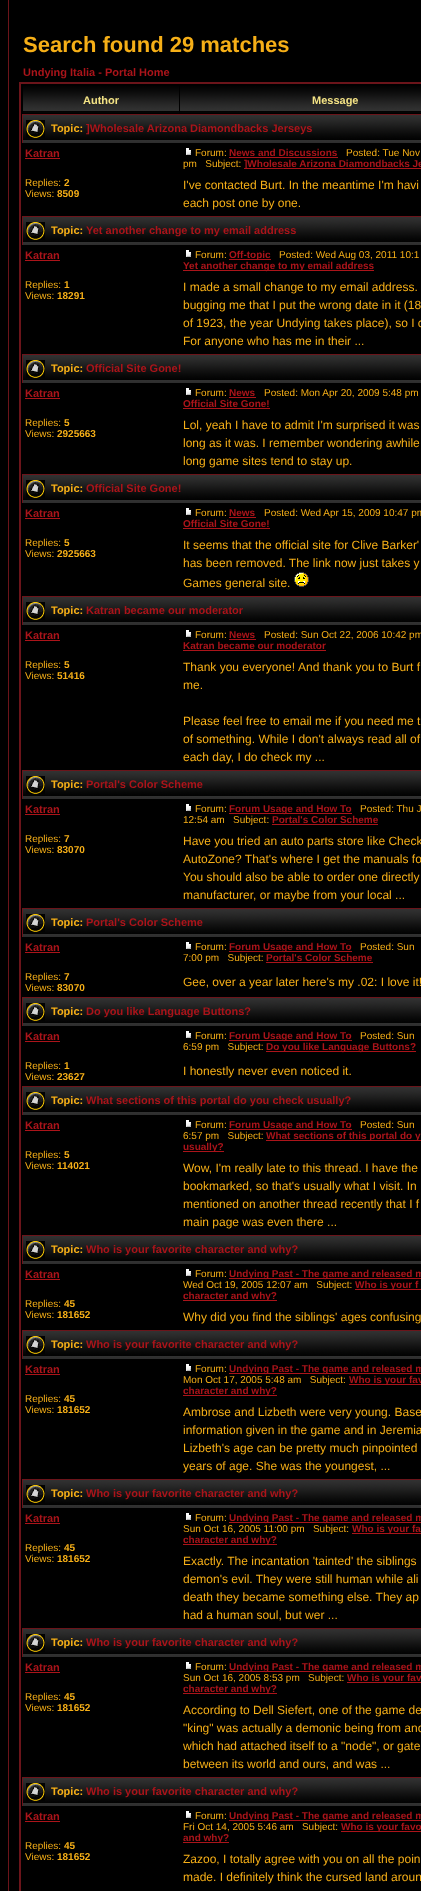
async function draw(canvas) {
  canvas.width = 421
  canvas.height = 1891
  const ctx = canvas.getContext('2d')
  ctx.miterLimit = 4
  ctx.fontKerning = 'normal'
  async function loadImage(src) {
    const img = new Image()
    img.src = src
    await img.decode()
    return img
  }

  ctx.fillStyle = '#000'
  ctx.fillRect(0, 0, 421, 1891)
  ctx.strokeStyle = '#6b141a'
  ctx.strokeRect(8.5, -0.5, 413, 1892)
  ctx.font = 'bold 22px Liberation Sans'
  ctx.fillStyle = '#f6af17'
  ctx.fillText('Search found 29 matches', 23, 52)
  ctx.font = 'bold 11px Liberation Sans'
  ctx.fillStyle = '#ab141a'
  ctx.fillText('Undying Italia - Portal Home', 23, 76)
  ctx.lineWidth = 2
  ctx.strokeRect(20, 83, 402, 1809)
  ctx.drawImage(await loadImage('image0.png'), 23, 86, 156, 27)
  ctx.fillStyle = '#f4e385'
  ctx.fillText('Author', 83, 104)
  ctx.drawImage(await loadImage('image1.png'), 180, 86, 241, 27)
  ctx.fillText('Message', 312, 104)
  ctx.drawImage(await loadImage('image2.png'), 23, 115, 398, 28)
  ctx.fillStyle = '#6b141a'
  ctx.fillRect(22, 114, 399, 1)
  ctx.fillRect(22, 114, 1, 29)
  ctx.drawImage(await loadImage('image3.png'), 26, 120, 19, 18)
  ctx.fillStyle = '#f6af17'
  ctx.fillText('Topic:', 51, 132)
  ctx.fillStyle = '#ab141a'
  ctx.fillText(']Wholesale Arizona Diamondbacks Jerseys', 86, 132)
  ctx.fillText('Katran', 25, 157)
  ctx.fillRect(25, 158, 35, 1)
  ctx.font = '10px Liberation Sans'
  ctx.fillStyle = '#f6af17'
  ctx.fillText('Replies:', 25, 186)
  ctx.font = 'bold 10px Liberation Sans'
  ctx.fillText('2', 64, 186)
  ctx.font = '10px Liberation Sans'
  ctx.fillText('Views:', 25, 197)
  ctx.font = 'bold 10px Liberation Sans'
  ctx.fillText('8509', 57, 197)
  ctx.drawImage(await loadImage('image4.png'), 186, 148, 5, 7)
  ctx.font = '10px Liberation Sans'
  ctx.fillText('Forum:', 195, 156)
  ctx.font = 'bold 10px Liberation Sans'
  ctx.fillStyle = '#ab141a'
  ctx.fillText('News and Discussions', 229, 156)
  ctx.fillRect(229, 157, 109, 1)
  ctx.font = '10px Liberation Sans'
  ctx.fillStyle = '#f6af17'
  ctx.fillText('Posted: Tue Nov', 346, 156)
  ctx.fillText('pm   Subject:', 183, 167)
  ctx.fillStyle = '#ab141a'
  ctx.fillRect(244, 168, 177, 1)
  ctx.font = 'bold 10px Liberation Sans'
  ctx.fillText(']Wholesale Arizona Diamondbacks Je', 244, 167)
  ctx.font = '12px Liberation Sans'
  ctx.fillStyle = '#f6af17'
  ctx.fillText('I\'ve contacted Burt. In the meantime I\'m havi', 183, 189)
  ctx.fillText('each post one by one.', 183, 207)
  ctx.drawImage(await loadImage('image2.png'), 23, 217, 398, 28)
  ctx.fillStyle = '#6b141a'
  ctx.fillRect(22, 216, 399, 1)
  ctx.fillRect(22, 216, 1, 29)
  ctx.drawImage(await loadImage('image3.png'), 26, 222, 19, 18)
  ctx.font = 'bold 11px Liberation Sans'
  ctx.fillStyle = '#f6af17'
  ctx.fillText('Topic:', 51, 234)
  ctx.fillStyle = '#ab141a'
  ctx.fillText('Yet another change to my email address', 86, 234)
  ctx.fillText('Katran', 25, 259)
  ctx.fillRect(25, 260, 35, 1)
  ctx.font = '10px Liberation Sans'
  ctx.fillStyle = '#f6af17'
  ctx.fillText('Replies:', 25, 288)
  ctx.font = 'bold 10px Liberation Sans'
  ctx.fillText('1', 64, 288)
  ctx.font = '10px Liberation Sans'
  ctx.fillText('Views:', 25, 299)
  ctx.font = 'bold 10px Liberation Sans'
  ctx.fillText('18291', 57, 299)
  ctx.drawImage(await loadImage('image4.png'), 186, 250, 5, 7)
  ctx.font = '10px Liberation Sans'
  ctx.fillText('Forum:', 195, 258)
  ctx.fillStyle = '#ab141a'
  ctx.fillRect(229, 259, 42, 1)
  ctx.font = 'bold 10px Liberation Sans'
  ctx.fillText('Off-topic', 229, 258)
  ctx.font = '10px Liberation Sans'
  ctx.fillStyle = '#f6af17'
  ctx.fillText('Posted: Wed Aug 03, 2011 10:1', 279, 258)
  ctx.fillStyle = '#ab141a'
  ctx.fillRect(183, 270, 191, 1)
  ctx.font = 'bold 10px Liberation Sans'
  ctx.fillText('Yet another change to my email address', 183, 269)
  ctx.font = '12px Liberation Sans'
  ctx.fillStyle = '#f6af17'
  ctx.fillText('I made a small change to my email address.', 183, 291)
  ctx.fillText('bugging me that I put the wrong date in it (18', 183, 309)
  ctx.fillText('of 1923, the year Undying takes place), so I c', 183, 327)
  ctx.fillText('For anyone who has me in their ...', 183, 345)
  ctx.drawImage(await loadImage('image2.png'), 23, 355, 398, 28)
  ctx.fillStyle = '#6b141a'
  ctx.fillRect(22, 354, 399, 1)
  ctx.fillRect(22, 354, 1, 29)
  ctx.drawImage(await loadImage('image3.png'), 26, 360, 19, 18)
  ctx.font = 'bold 11px Liberation Sans'
  ctx.fillStyle = '#f6af17'
  ctx.fillText('Topic:', 51, 372)
  ctx.fillStyle = '#ab141a'
  ctx.fillText('Official Site Gone!', 86, 372)
  ctx.fillText('Katran', 25, 397)
  ctx.fillRect(25, 398, 35, 1)
  ctx.font = '10px Liberation Sans'
  ctx.fillStyle = '#f6af17'
  ctx.fillText('Replies:', 25, 426)
  ctx.font = 'bold 10px Liberation Sans'
  ctx.fillText('5', 64, 426)
  ctx.font = '10px Liberation Sans'
  ctx.fillText('Views:', 25, 437)
  ctx.font = 'bold 10px Liberation Sans'
  ctx.fillText('2925663', 57, 437)
  ctx.drawImage(await loadImage('image4.png'), 186, 388, 5, 7)
  ctx.font = '10px Liberation Sans'
  ctx.fillText('Forum:', 195, 396)
  ctx.font = 'bold 10px Liberation Sans'
  ctx.fillStyle = '#ab141a'
  ctx.fillText('News', 229, 396)
  ctx.fillRect(229, 397, 27, 1)
  ctx.font = '10px Liberation Sans'
  ctx.fillStyle = '#f6af17'
  ctx.fillText('Posted: Mon Apr 20, 2009 5:48 pm', 264, 396)
  ctx.font = 'bold 10px Liberation Sans'
  ctx.fillStyle = '#ab141a'
  ctx.fillText('Official Site Gone!', 183, 407)
  ctx.fillRect(183, 408, 87, 1)
  ctx.font = '12px Liberation Sans'
  ctx.fillStyle = '#f6af17'
  ctx.fillText('Lol, yeah I have to admit I\'m surprised it was', 183, 429)
  ctx.fillText('long as it was. I remember wondering awhile', 183, 447)
  ctx.fillText('long game sites tend to stay up.', 183, 465)
  ctx.drawImage(await loadImage('image2.png'), 23, 475, 398, 28)
  ctx.fillStyle = '#6b141a'
  ctx.fillRect(22, 474, 399, 1)
  ctx.fillRect(22, 474, 1, 29)
  ctx.drawImage(await loadImage('image3.png'), 26, 480, 19, 18)
  ctx.font = 'bold 11px Liberation Sans'
  ctx.fillStyle = '#f6af17'
  ctx.fillText('Topic:', 51, 492)
  ctx.fillStyle = '#ab141a'
  ctx.fillText('Official Site Gone!', 86, 492)
  ctx.fillText('Katran', 25, 517)
  ctx.fillRect(25, 518, 35, 1)
  ctx.font = '10px Liberation Sans'
  ctx.fillStyle = '#f6af17'
  ctx.fillText('Replies:', 25, 546)
  ctx.font = 'bold 10px Liberation Sans'
  ctx.fillText('5', 64, 546)
  ctx.font = '10px Liberation Sans'
  ctx.fillText('Views:', 25, 557)
  ctx.font = 'bold 10px Liberation Sans'
  ctx.fillText('2925663', 57, 557)
  ctx.drawImage(await loadImage('image4.png'), 186, 508, 5, 7)
  ctx.font = '10px Liberation Sans'
  ctx.fillText('Forum:', 195, 516)
  ctx.font = 'bold 10px Liberation Sans'
  ctx.fillStyle = '#ab141a'
  ctx.fillText('News', 229, 516)
  ctx.fillRect(229, 517, 27, 1)
  ctx.font = '10px Liberation Sans'
  ctx.fillStyle = '#f6af17'
  ctx.fillText('Posted: Wed Apr 15, 2009 10:47 pm', 264, 516)
  ctx.font = 'bold 10px Liberation Sans'
  ctx.fillStyle = '#ab141a'
  ctx.fillText('Official Site Gone!', 183, 527)
  ctx.fillRect(183, 528, 87, 1)
  ctx.font = '12px Liberation Sans'
  ctx.fillStyle = '#f6af17'
  ctx.fillText('It seems that the official site for Clive Barker\'', 183, 549)
  ctx.fillText('has been removed. The link now just takes y', 183, 567)
  ctx.fillText('Games general site.', 183, 587)
  ctx.drawImage(await loadImage('image5.png'), 294, 572, 15, 15)
  ctx.drawImage(await loadImage('image2.png'), 23, 597, 398, 28)
  ctx.fillStyle = '#6b141a'
  ctx.fillRect(22, 596, 399, 1)
  ctx.fillRect(22, 596, 1, 29)
  ctx.drawImage(await loadImage('image3.png'), 26, 602, 19, 18)
  ctx.font = 'bold 11px Liberation Sans'
  ctx.fillStyle = '#f6af17'
  ctx.fillText('Topic:', 51, 614)
  ctx.fillStyle = '#ab141a'
  ctx.fillText('Katran became our moderator', 86, 614)
  ctx.fillText('Katran', 25, 639)
  ctx.fillRect(25, 640, 35, 1)
  ctx.font = '10px Liberation Sans'
  ctx.fillStyle = '#f6af17'
  ctx.fillText('Replies:', 25, 668)
  ctx.font = 'bold 10px Liberation Sans'
  ctx.fillText('5', 64, 668)
  ctx.font = '10px Liberation Sans'
  ctx.fillText('Views:', 25, 679)
  ctx.font = 'bold 10px Liberation Sans'
  ctx.fillText('51416', 57, 679)
  ctx.drawImage(await loadImage('image4.png'), 186, 630, 5, 7)
  ctx.font = '10px Liberation Sans'
  ctx.fillText('Forum:', 195, 638)
  ctx.font = 'bold 10px Liberation Sans'
  ctx.fillStyle = '#ab141a'
  ctx.fillText('News', 229, 638)
  ctx.fillRect(229, 639, 27, 1)
  ctx.font = '10px Liberation Sans'
  ctx.fillStyle = '#f6af17'
  ctx.fillText('Posted: Sun Oct 22, 2006 10:42 pm', 264, 638)
  ctx.font = 'bold 10px Liberation Sans'
  ctx.fillStyle = '#ab141a'
  ctx.fillText('Katran became our moderator', 183, 649)
  ctx.fillRect(183, 650, 143, 1)
  ctx.font = '12px Liberation Sans'
  ctx.fillStyle = '#f6af17'
  ctx.fillText('Thank you everyone!', 183, 671)
  ctx.fillText('And thank you to Burt f', 298, 671)
  ctx.fillText('me.', 183, 689)
  ctx.fillText('Please feel free to email me if you need me t', 183, 725)
  ctx.fillText('of something. While I don\'t always read all of', 183, 743)
  ctx.fillText('each day, I do check my ...', 183, 761)
  ctx.drawImage(await loadImage('image2.png'), 23, 771, 398, 28)
  ctx.fillStyle = '#6b141a'
  ctx.fillRect(22, 770, 399, 1)
  ctx.fillRect(22, 770, 1, 29)
  ctx.drawImage(await loadImage('image3.png'), 26, 776, 19, 18)
  ctx.font = 'bold 11px Liberation Sans'
  ctx.fillStyle = '#f6af17'
  ctx.fillText('Topic:', 51, 788)
  ctx.fillStyle = '#ab141a'
  ctx.fillText('Portal\'s Color Scheme', 86, 788)
  ctx.fillText('Katran', 25, 813)
  ctx.fillRect(25, 814, 35, 1)
  ctx.font = '10px Liberation Sans'
  ctx.fillStyle = '#f6af17'
  ctx.fillText('Replies:', 25, 842)
  ctx.font = 'bold 10px Liberation Sans'
  ctx.fillText('7', 64, 842)
  ctx.font = '10px Liberation Sans'
  ctx.fillText('Views:', 25, 853)
  ctx.font = 'bold 10px Liberation Sans'
  ctx.fillText('83070', 57, 853)
  ctx.drawImage(await loadImage('image4.png'), 186, 804, 5, 7)
  ctx.font = '10px Liberation Sans'
  ctx.fillText('Forum:', 195, 812)
  ctx.fillStyle = '#ab141a'
  ctx.fillRect(229, 813, 123, 1)
  ctx.font = 'bold 10px Liberation Sans'
  ctx.fillText('Forum Usage and How To', 229, 812)
  ctx.font = '10px Liberation Sans'
  ctx.fillStyle = '#f6af17'
  ctx.fillText('Posted: Thu J', 360, 812)
  ctx.fillText('12:54 am   Subject:', 183, 823)
  ctx.font = 'bold 10px Liberation Sans'
  ctx.fillStyle = '#ab141a'
  ctx.fillText('Portal\'s Color Scheme', 272, 823)
  ctx.fillRect(272, 824, 106, 1)
  ctx.font = '12px Liberation Sans'
  ctx.fillStyle = '#f6af17'
  ctx.fillText('Have you tried an auto parts store like Check', 183, 845)
  ctx.fillText('AutoZone? That\'s where I get the manuals fo', 183, 863)
  ctx.fillText('You should also be able to order one directly', 183, 881)
  ctx.fillText('manufacturer, or maybe from your local ...', 183, 899)
  ctx.drawImage(await loadImage('image2.png'), 23, 909, 398, 28)
  ctx.fillStyle = '#6b141a'
  ctx.fillRect(22, 908, 399, 1)
  ctx.fillRect(22, 908, 1, 29)
  ctx.drawImage(await loadImage('image3.png'), 26, 914, 19, 18)
  ctx.font = 'bold 11px Liberation Sans'
  ctx.fillStyle = '#f6af17'
  ctx.fillText('Topic:', 51, 926)
  ctx.fillStyle = '#ab141a'
  ctx.fillText('Portal\'s Color Scheme', 86, 926)
  ctx.fillText('Katran', 25, 951)
  ctx.fillRect(25, 952, 35, 1)
  ctx.font = '10px Liberation Sans'
  ctx.fillStyle = '#f6af17'
  ctx.fillText('Replies:', 25, 980)
  ctx.font = 'bold 10px Liberation Sans'
  ctx.fillText('7', 64, 980)
  ctx.font = '10px Liberation Sans'
  ctx.fillText('Views:', 25, 991)
  ctx.font = 'bold 10px Liberation Sans'
  ctx.fillText('83070', 57, 991)
  ctx.drawImage(await loadImage('image4.png'), 186, 942, 5, 7)
  ctx.font = '10px Liberation Sans'
  ctx.fillText('Forum:', 195, 950)
  ctx.fillStyle = '#ab141a'
  ctx.fillRect(229, 951, 123, 1)
  ctx.font = 'bold 10px Liberation Sans'
  ctx.fillText('Forum Usage and How To', 229, 950)
  ctx.font = '10px Liberation Sans'
  ctx.fillStyle = '#f6af17'
  ctx.fillText('Posted: Sun', 360, 950)
  ctx.fillText('7:00 pm   Subject:', 183, 961)
  ctx.font = 'bold 10px Liberation Sans'
  ctx.fillStyle = '#ab141a'
  ctx.fillText('Portal\'s Color Scheme', 266, 961)
  ctx.fillRect(266, 962, 107, 1)
  ctx.font = '12px Liberation Sans'
  ctx.fillStyle = '#f6af17'
  ctx.fillText('Gee, over a year later here\'s my .02: I love it!', 183, 986)
  ctx.drawImage(await loadImage('image2.png'), 23, 998, 398, 28)
  ctx.fillStyle = '#6b141a'
  ctx.fillRect(22, 997, 399, 1)
  ctx.fillRect(22, 997, 1, 29)
  ctx.drawImage(await loadImage('image3.png'), 26, 1003, 19, 18)
  ctx.font = 'bold 11px Liberation Sans'
  ctx.fillStyle = '#f6af17'
  ctx.fillText('Topic:', 51, 1015)
  ctx.fillStyle = '#ab141a'
  ctx.fillText('Do you like Language Buttons?', 86, 1015)
  ctx.fillText('Katran', 25, 1040)
  ctx.fillRect(25, 1041, 35, 1)
  ctx.font = '10px Liberation Sans'
  ctx.fillStyle = '#f6af17'
  ctx.fillText('Replies:', 25, 1069)
  ctx.font = 'bold 10px Liberation Sans'
  ctx.fillText('1', 64, 1069)
  ctx.font = '10px Liberation Sans'
  ctx.fillText('Views:', 25, 1080)
  ctx.font = 'bold 10px Liberation Sans'
  ctx.fillText('23627', 57, 1080)
  ctx.drawImage(await loadImage('image4.png'), 186, 1031, 5, 7)
  ctx.font = '10px Liberation Sans'
  ctx.fillText('Forum:', 195, 1039)
  ctx.fillStyle = '#ab141a'
  ctx.fillRect(229, 1040, 123, 1)
  ctx.font = 'bold 10px Liberation Sans'
  ctx.fillText('Forum Usage and How To', 229, 1039)
  ctx.font = '10px Liberation Sans'
  ctx.fillStyle = '#f6af17'
  ctx.fillText('Posted: Sun', 360, 1039)
  ctx.fillText('6:59 pm   Subject:', 183, 1050)
  ctx.fillStyle = '#ab141a'
  ctx.fillRect(266, 1051, 150, 1)
  ctx.font = 'bold 10px Liberation Sans'
  ctx.fillText('Do you like Language Buttons?', 266, 1050)
  ctx.font = '12px Liberation Sans'
  ctx.fillStyle = '#f6af17'
  ctx.fillText('I honestly never even noticed it.', 183, 1075)
  ctx.drawImage(await loadImage('image2.png'), 23, 1087, 398, 28)
  ctx.fillStyle = '#6b141a'
  ctx.fillRect(22, 1086, 399, 1)
  ctx.fillRect(22, 1086, 1, 29)
  ctx.drawImage(await loadImage('image3.png'), 26, 1092, 19, 18)
  ctx.font = 'bold 11px Liberation Sans'
  ctx.fillStyle = '#f6af17'
  ctx.fillText('Topic:', 51, 1104)
  ctx.fillStyle = '#ab141a'
  ctx.fillText('What sections of this portal do you check usually?', 86, 1104)
  ctx.fillText('Katran', 25, 1129)
  ctx.fillRect(25, 1130, 35, 1)
  ctx.font = '10px Liberation Sans'
  ctx.fillStyle = '#f6af17'
  ctx.fillText('Replies:', 25, 1158)
  ctx.font = 'bold 10px Liberation Sans'
  ctx.fillText('5', 64, 1158)
  ctx.font = '10px Liberation Sans'
  ctx.fillText('Views:', 25, 1169)
  ctx.font = 'bold 10px Liberation Sans'
  ctx.fillText('114021', 57, 1169)
  ctx.drawImage(await loadImage('image4.png'), 186, 1120, 5, 7)
  ctx.font = '10px Liberation Sans'
  ctx.fillText('Forum:', 195, 1128)
  ctx.fillStyle = '#ab141a'
  ctx.fillRect(229, 1129, 123, 1)
  ctx.font = 'bold 10px Liberation Sans'
  ctx.fillText('Forum Usage and How To', 229, 1128)
  ctx.font = '10px Liberation Sans'
  ctx.fillStyle = '#f6af17'
  ctx.fillText('Posted: Sun', 360, 1128)
  ctx.fillText('6:57 pm   Subject:', 183, 1139)
  ctx.fillStyle = '#ab141a'
  ctx.fillRect(266, 1140, 155, 1)
  ctx.font = 'bold 10px Liberation Sans'
  ctx.fillText('What sections of this portal do y', 266, 1139)
  ctx.fillRect(183, 1151, 41, 1)
  ctx.fillText('usually?', 183, 1150)
  ctx.font = '12px Liberation Sans'
  ctx.fillStyle = '#f6af17'
  ctx.fillText('Wow, I\'m really late to this thread. I have the', 183, 1172)
  ctx.fillText('bookmarked, so that\'s usually what I visit. In', 183, 1190)
  ctx.fillText('mentioned on another thread recently that I f', 183, 1208)
  ctx.fillText('main page was even there ...', 183, 1226)
  ctx.drawImage(await loadImage('image2.png'), 23, 1236, 398, 28)
  ctx.fillStyle = '#6b141a'
  ctx.fillRect(22, 1235, 399, 1)
  ctx.fillRect(22, 1235, 1, 29)
  ctx.drawImage(await loadImage('image3.png'), 26, 1241, 19, 18)
  ctx.font = 'bold 11px Liberation Sans'
  ctx.fillStyle = '#f6af17'
  ctx.fillText('Topic:', 51, 1253)
  ctx.fillStyle = '#ab141a'
  ctx.fillText('Who is your favorite character and why?', 86, 1253)
  ctx.fillText('Katran', 25, 1278)
  ctx.fillRect(25, 1279, 35, 1)
  ctx.font = '10px Liberation Sans'
  ctx.fillStyle = '#f6af17'
  ctx.fillText('Replies:', 25, 1307)
  ctx.font = 'bold 10px Liberation Sans'
  ctx.fillText('45', 64, 1307)
  ctx.font = '10px Liberation Sans'
  ctx.fillText('Views:', 25, 1318)
  ctx.font = 'bold 10px Liberation Sans'
  ctx.fillText('181652', 57, 1318)
  ctx.drawImage(await loadImage('image4.png'), 186, 1269, 5, 7)
  ctx.font = '10px Liberation Sans'
  ctx.fillText('Forum:', 195, 1277)
  ctx.fillStyle = '#ab141a'
  ctx.fillRect(229, 1278, 192, 1)
  ctx.font = 'bold 10px Liberation Sans'
  ctx.fillText('Undying Past - The game and released m', 229, 1277)
  ctx.font = '10px Liberation Sans'
  ctx.fillStyle = '#f6af17'
  ctx.fillText('Wed Oct 19, 2005 12:07 am   Subject:', 183, 1288)
  ctx.fillStyle = '#ab141a'
  ctx.fillRect(355, 1289, 66, 1)
  ctx.font = 'bold 10px Liberation Sans'
  ctx.fillText('Who is your f', 355, 1288)
  ctx.fillRect(183, 1300, 94, 1)
  ctx.fillText('character and why?', 183, 1299)
  ctx.font = '12px Liberation Sans'
  ctx.fillStyle = '#f6af17'
  ctx.fillText('Why did you find the siblings\' ages confusing', 183, 1321)
  ctx.drawImage(await loadImage('image2.png'), 23, 1331, 398, 28)
  ctx.fillStyle = '#6b141a'
  ctx.fillRect(22, 1330, 399, 1)
  ctx.fillRect(22, 1330, 1, 29)
  ctx.drawImage(await loadImage('image3.png'), 26, 1336, 19, 18)
  ctx.font = 'bold 11px Liberation Sans'
  ctx.fillStyle = '#f6af17'
  ctx.fillText('Topic:', 51, 1348)
  ctx.fillStyle = '#ab141a'
  ctx.fillText('Who is your favorite character and why?', 86, 1348)
  ctx.fillText('Katran', 25, 1373)
  ctx.fillRect(25, 1374, 35, 1)
  ctx.font = '10px Liberation Sans'
  ctx.fillStyle = '#f6af17'
  ctx.fillText('Replies:', 25, 1402)
  ctx.font = 'bold 10px Liberation Sans'
  ctx.fillText('45', 64, 1402)
  ctx.font = '10px Liberation Sans'
  ctx.fillText('Views:', 25, 1413)
  ctx.font = 'bold 10px Liberation Sans'
  ctx.fillText('181652', 57, 1413)
  ctx.drawImage(await loadImage('image4.png'), 186, 1364, 5, 7)
  ctx.font = '10px Liberation Sans'
  ctx.fillText('Forum:', 195, 1372)
  ctx.fillStyle = '#ab141a'
  ctx.fillRect(229, 1373, 192, 1)
  ctx.font = 'bold 10px Liberation Sans'
  ctx.fillText('Undying Past - The game and released m', 229, 1372)
  ctx.font = '10px Liberation Sans'
  ctx.fillStyle = '#f6af17'
  ctx.fillText('Mon Oct 17, 2005 5:48 am   Subject:', 183, 1383)
  ctx.fillStyle = '#ab141a'
  ctx.fillRect(349, 1384, 72, 1)
  ctx.font = 'bold 10px Liberation Sans'
  ctx.fillText('Who is your fav', 349, 1383)
  ctx.fillRect(183, 1395, 94, 1)
  ctx.fillText('character and why?', 183, 1394)
  ctx.font = '12px Liberation Sans'
  ctx.fillStyle = '#f6af17'
  ctx.fillText('Ambrose and Lizbeth were very young. Base', 183, 1416)
  ctx.fillText('information given in the game and in Jeremia', 183, 1434)
  ctx.fillText('Lizbeth\'s age can be pretty much pinpointed', 183, 1452)
  ctx.fillText('years of age. She was the youngest, ...', 183, 1470)
  ctx.drawImage(await loadImage('image2.png'), 23, 1480, 398, 28)
  ctx.fillStyle = '#6b141a'
  ctx.fillRect(22, 1479, 399, 1)
  ctx.fillRect(22, 1479, 1, 29)
  ctx.drawImage(await loadImage('image3.png'), 26, 1485, 19, 18)
  ctx.font = 'bold 11px Liberation Sans'
  ctx.fillStyle = '#f6af17'
  ctx.fillText('Topic:', 51, 1497)
  ctx.fillStyle = '#ab141a'
  ctx.fillText('Who is your favorite character and why?', 86, 1497)
  ctx.fillText('Katran', 25, 1522)
  ctx.fillRect(25, 1523, 35, 1)
  ctx.font = '10px Liberation Sans'
  ctx.fillStyle = '#f6af17'
  ctx.fillText('Replies:', 25, 1551)
  ctx.font = 'bold 10px Liberation Sans'
  ctx.fillText('45', 64, 1551)
  ctx.font = '10px Liberation Sans'
  ctx.fillText('Views:', 25, 1562)
  ctx.font = 'bold 10px Liberation Sans'
  ctx.fillText('181652', 57, 1562)
  ctx.drawImage(await loadImage('image4.png'), 186, 1513, 5, 7)
  ctx.font = '10px Liberation Sans'
  ctx.fillText('Forum:', 195, 1521)
  ctx.fillStyle = '#ab141a'
  ctx.fillRect(229, 1522, 192, 1)
  ctx.font = 'bold 10px Liberation Sans'
  ctx.fillText('Undying Past - The game and released m', 229, 1521)
  ctx.font = '10px Liberation Sans'
  ctx.fillStyle = '#f6af17'
  ctx.fillText('Sun Oct 16, 2005 11:00 pm   Subject:', 183, 1532)
  ctx.fillStyle = '#ab141a'
  ctx.fillRect(352, 1533, 69, 1)
  ctx.font = 'bold 10px Liberation Sans'
  ctx.fillText('Who is your fa', 352, 1532)
  ctx.fillRect(183, 1544, 94, 1)
  ctx.fillText('character and why?', 183, 1543)
  ctx.font = '12px Liberation Sans'
  ctx.fillStyle = '#f6af17'
  ctx.fillText('Exactly. The incantation \'tainted\' the siblings', 183, 1565)
  ctx.fillText('demon\'s evil. They were still human while ali', 183, 1583)
  ctx.fillText('death they became something else. They ap', 183, 1601)
  ctx.fillText('had a human soul, but wer ...', 183, 1619)
  ctx.drawImage(await loadImage('image2.png'), 23, 1629, 398, 28)
  ctx.fillStyle = '#6b141a'
  ctx.fillRect(22, 1628, 399, 1)
  ctx.fillRect(22, 1628, 1, 29)
  ctx.drawImage(await loadImage('image3.png'), 26, 1634, 19, 18)
  ctx.font = 'bold 11px Liberation Sans'
  ctx.fillStyle = '#f6af17'
  ctx.fillText('Topic:', 51, 1646)
  ctx.fillStyle = '#ab141a'
  ctx.fillText('Who is your favorite character and why?', 86, 1646)
  ctx.fillText('Katran', 25, 1671)
  ctx.fillRect(25, 1672, 35, 1)
  ctx.font = '10px Liberation Sans'
  ctx.fillStyle = '#f6af17'
  ctx.fillText('Replies:', 25, 1700)
  ctx.font = 'bold 10px Liberation Sans'
  ctx.fillText('45', 64, 1700)
  ctx.font = '10px Liberation Sans'
  ctx.fillText('Views:', 25, 1711)
  ctx.font = 'bold 10px Liberation Sans'
  ctx.fillText('181652', 57, 1711)
  ctx.drawImage(await loadImage('image4.png'), 186, 1662, 5, 7)
  ctx.font = '10px Liberation Sans'
  ctx.fillText('Forum:', 195, 1670)
  ctx.fillStyle = '#ab141a'
  ctx.fillRect(229, 1671, 192, 1)
  ctx.font = 'bold 10px Liberation Sans'
  ctx.fillText('Undying Past - The game and released m', 229, 1670)
  ctx.font = '10px Liberation Sans'
  ctx.fillStyle = '#f6af17'
  ctx.fillText('Sun Oct 16, 2005 8:53 pm   Subject:', 183, 1681)
  ctx.fillStyle = '#ab141a'
  ctx.fillRect(347, 1682, 74, 1)
  ctx.font = 'bold 10px Liberation Sans'
  ctx.fillText('Who is your fav', 347, 1681)
  ctx.fillRect(183, 1693, 94, 1)
  ctx.fillText('character and why?', 183, 1692)
  ctx.font = '12px Liberation Sans'
  ctx.fillStyle = '#f6af17'
  ctx.fillText('According to Dell Siefert, one of the game de', 183, 1714)
  ctx.fillText('"king" was actually a demonic being from ano', 183, 1732)
  ctx.fillText('which had attached itself to a "node", or gate', 183, 1750)
  ctx.fillText('between its world and ours, and was ...', 183, 1768)
  ctx.drawImage(await loadImage('image2.png'), 23, 1778, 398, 28)
  ctx.fillStyle = '#6b141a'
  ctx.fillRect(22, 1777, 399, 1)
  ctx.fillRect(22, 1777, 1, 29)
  ctx.drawImage(await loadImage('image3.png'), 26, 1783, 19, 18)
  ctx.font = 'bold 11px Liberation Sans'
  ctx.fillStyle = '#f6af17'
  ctx.fillText('Topic:', 51, 1795)
  ctx.fillStyle = '#ab141a'
  ctx.fillText('Who is your favorite character and why?', 86, 1795)
  ctx.fillText('Katran', 25, 1820)
  ctx.fillRect(25, 1821, 35, 1)
  ctx.font = '10px Liberation Sans'
  ctx.fillStyle = '#f6af17'
  ctx.fillText('Replies:', 25, 1849)
  ctx.font = 'bold 10px Liberation Sans'
  ctx.fillText('45', 64, 1849)
  ctx.font = '10px Liberation Sans'
  ctx.fillText('Views:', 25, 1860)
  ctx.font = 'bold 10px Liberation Sans'
  ctx.fillText('181652', 57, 1860)
  ctx.drawImage(await loadImage('image4.png'), 186, 1811, 5, 7)
  ctx.font = '10px Liberation Sans'
  ctx.fillText('Forum:', 195, 1819)
  ctx.fillStyle = '#ab141a'
  ctx.fillRect(229, 1820, 192, 1)
  ctx.font = 'bold 10px Liberation Sans'
  ctx.fillText('Undying Past - The game and released m', 229, 1819)
  ctx.font = '10px Liberation Sans'
  ctx.fillStyle = '#f6af17'
  ctx.fillText('Fri Oct 14, 2005 5:46 am   Subject:', 183, 1830)
  ctx.fillStyle = '#ab141a'
  ctx.fillRect(341, 1831, 80, 1)
  ctx.font = 'bold 10px Liberation Sans'
  ctx.fillText('Who is your favo', 341, 1830)
  ctx.fillRect(183, 1842, 46, 1)
  ctx.fillText('and why?', 183, 1841)
  ctx.font = '12px Liberation Sans'
  ctx.fillStyle = '#f6af17'
  ctx.fillText('Zazoo, I totally agree with you on all the poin', 183, 1863)
  ctx.fillText('made. I definitely think the cursed land aroun', 183, 1881)
}

draw(document.querySelector('canvas'))
